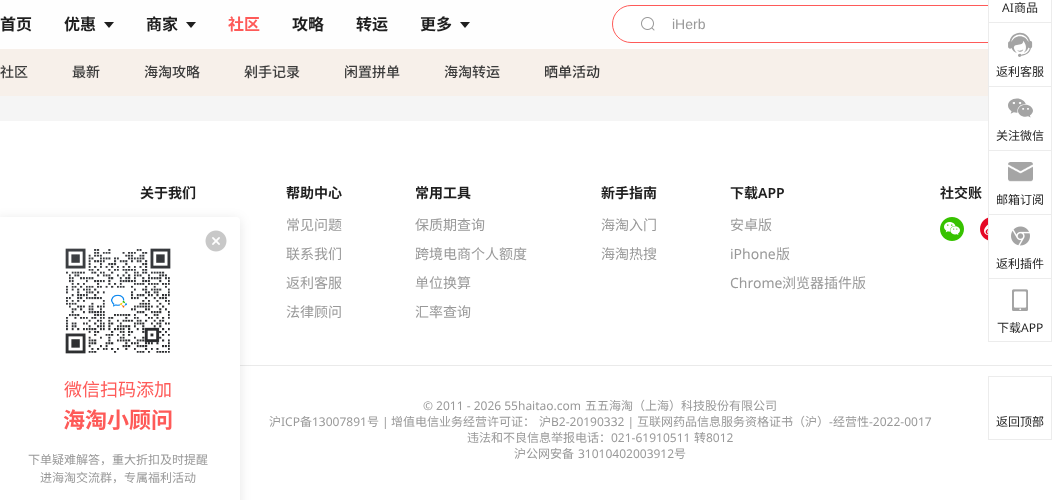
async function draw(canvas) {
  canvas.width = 1052
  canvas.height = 500
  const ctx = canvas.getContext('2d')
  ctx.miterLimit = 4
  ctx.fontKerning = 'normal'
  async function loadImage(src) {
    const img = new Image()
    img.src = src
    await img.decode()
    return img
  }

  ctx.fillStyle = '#f5f5f5'
  ctx.fillRect(0, 0, 1052, 500)
  ctx.fillStyle = '#fefefe'
  ctx.fillRect(0, 0, 988, 48)
  ctx.font = 'bold 16px Noto Sans CJK SC'
  ctx.fillStyle = '#1f1f1f'
  ctx.fillText('首页', 0, 30)
  ctx.fillText('优惠', 64, 30)
  ctx.beginPath()
  ctx.moveTo(104, 22)
  ctx.lineTo(109, 28)
  ctx.lineTo(114, 22)
  ctx.closePath()
  ctx.fill()
  ctx.fillText('商家', 146, 30)
  ctx.beginPath()
  ctx.moveTo(186, 22)
  ctx.lineTo(191, 28)
  ctx.lineTo(196, 22)
  ctx.closePath()
  ctx.fill()
  ctx.fillStyle = '#fe5a58'
  ctx.fillText('社区', 228, 30)
  ctx.fillStyle = '#1f1f1f'
  ctx.fillText('攻略', 292, 30)
  ctx.fillText('转运', 356, 30)
  ctx.fillText('更多', 420, 30)
  ctx.beginPath()
  ctx.moveTo(460, 22)
  ctx.lineTo(465, 28)
  ctx.lineTo(470, 22)
  ctx.closePath()
  ctx.fill()
  ctx.fillStyle = '#fff'
  ctx.beginPath()
  ctx.roundRect(612.5, 5.5, 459, 37, 18.5)
  ctx.fill()
  ctx.strokeStyle = '#fe5a58'
  ctx.stroke()
  ctx.drawImage(await loadImage('image0.png'), 641, 17, 14, 14)
  ctx.font = '14px Liberation Sans'
  ctx.fillStyle = '#999'
  ctx.fillText('iHerb', 672, 29)
  ctx.fillStyle = '#fff'
  ctx.fillRect(989, 0, 62, 6)
  ctx.strokeStyle = '#ececec'
  ctx.strokeRect(988.5, -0.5, 63, 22)
  ctx.font = '12px Noto Sans'
  ctx.fillStyle = '#1f1f1f'
  ctx.fillText('AI', 1002, 12)
  ctx.font = '12px Noto Sans CJK SC'
  ctx.fillText('商品', 1014, 12)
  ctx.fillStyle = '#fff'
  ctx.fillRect(989, 21, 62, 1)
  ctx.fillRect(989, 42, 62, 42)
  ctx.strokeRect(988.5, 22.5, 63, 63)
  ctx.drawImage(await loadImage('image1.png'), 1008, 32, 25, 25)
  ctx.fillStyle = '#1f1f1f'
  ctx.fillText('返利客服', 996, 76)
  ctx.fillStyle = '#fff'
  ctx.fillRect(989, 84, 62, 2)
  ctx.fillRect(989, 87, 62, 34)
  ctx.fillRect(0, 121, 1052, 379)
  ctx.strokeRect(988.5, 86.5, 63, 63)
  ctx.drawImage(await loadImage('image2.png'), 1008, 98, 25, 20)
  ctx.fillStyle = '#1f1f1f'
  ctx.fillText('关注微信', 996, 140)
  ctx.fillStyle = '#fff'
  ctx.fillRect(989, 149, 62, 1)
  ctx.strokeRect(988.5, 150.5, 63, 63)
  ctx.drawImage(await loadImage('image3.png'), 1008, 162, 25, 20)
  ctx.fillStyle = '#1f1f1f'
  ctx.fillText('邮箱订阅', 996, 204)
  ctx.fillStyle = '#fff'
  ctx.fillRect(989, 213, 62, 1)
  ctx.strokeRect(988.5, 214.5, 63, 63)
  ctx.drawImage(await loadImage('image4.png'), 1011, 226, 19, 20)
  ctx.fillStyle = '#1f1f1f'
  ctx.fillText('返利插件', 996, 268)
  ctx.fillStyle = '#fff'
  ctx.fillRect(989, 277, 62, 1)
  ctx.strokeRect(988.5, 278.5, 63, 63)
  ctx.drawImage(await loadImage('image5.png'), 1012, 289, 16, 22)
  ctx.fillStyle = '#1f1f1f'
  ctx.fillText('下载', 997, 332)
  ctx.font = '12px Noto Sans'
  ctx.fillText('APP', 1021, 332)
  ctx.strokeRect(988.5, 376.5, 63, 63)
  ctx.font = '12px Noto Sans CJK SC'
  ctx.fillText('返回顶部', 996, 426)
  ctx.fillStyle = '#f7f0ea'
  ctx.fillRect(0, 49, 988, 47)
  ctx.fillStyle = '#fffefe'
  ctx.fillRect(0, 48, 988, 1)
  ctx.font = '500 14px Noto Sans CJK SC'
  ctx.fillStyle = '#3c3c3c'
  ctx.fillText('社区', 0, 77)
  ctx.fillText('最新', 72, 77)
  ctx.fillText('海淘攻略', 144, 77)
  ctx.fillText('剁手记录', 244, 77)
  ctx.fillText('闲置拼单', 344, 77)
  ctx.fillText('海淘转运', 444, 77)
  ctx.fillStyle = '#353535'
  ctx.fillText('晒单活动', 544, 77)
  ctx.font = 'bold 14px Noto Sans CJK SC'
  ctx.fillStyle = '#1f1f1f'
  ctx.fillText('关于我们', 140, 198)
  ctx.fillText('帮助中心', 286, 198)
  ctx.font = '14px Noto Sans CJK SC'
  ctx.fillStyle = '#999'
  ctx.fillText('常见问题', 286, 230)
  ctx.fillText('联系我们', 286, 259)
  ctx.fillText('返利客服', 286, 288)
  ctx.fillText('法律顾问', 286, 317)
  ctx.font = 'bold 14px Noto Sans CJK SC'
  ctx.fillStyle = '#1f1f1f'
  ctx.fillText('常用工具', 415, 198)
  ctx.font = '14px Noto Sans CJK SC'
  ctx.fillStyle = '#999'
  ctx.fillText('保质期查询', 415, 230)
  ctx.fillText('跨境电商个人额度', 415, 259)
  ctx.fillText('单位换算', 415, 288)
  ctx.fillText('汇率查询', 415, 317)
  ctx.font = 'bold 14px Noto Sans CJK SC'
  ctx.fillStyle = '#1f1f1f'
  ctx.fillText('新手指南', 601, 198)
  ctx.font = '14px Noto Sans CJK SC'
  ctx.fillStyle = '#999'
  ctx.fillText('海淘入门', 601, 230)
  ctx.fillText('海淘热搜', 601, 259)
  ctx.font = 'bold 14px Noto Sans CJK SC'
  ctx.fillStyle = '#1f1f1f'
  ctx.fillText('下载', 730, 198)
  ctx.font = '600 14px Noto Sans'
  ctx.fillText('APP', 758, 198)
  ctx.font = '14px Noto Sans CJK SC'
  ctx.fillStyle = '#999'
  ctx.fillText('安卓版', 730, 230)
  ctx.font = '14px Noto Sans'
  ctx.fillText('iPhone', 730, 259)
  ctx.font = '14px Noto Sans CJK SC'
  ctx.fillText('版', 776, 259)
  ctx.font = '14px Noto Sans'
  ctx.fillText('Chrome', 730, 288)
  ctx.font = '14px Noto Sans CJK SC'
  ctx.fillText('浏览器插件版', 782, 288)
  ctx.font = 'bold 14px Noto Sans CJK SC'
  ctx.fillStyle = '#1f1f1f'
  ctx.fillText('社交账', 940, 198)
  ctx.drawImage(await loadImage('image6.png'), 940, 217, 24, 24)
  ctx.drawImage(await loadImage('image7.png'), 980, 217, 8, 24)
  ctx.fillStyle = '#eaeaea'
  ctx.fillRect(240, 365, 812, 1)
  ctx.font = '12px Noto Sans'
  ctx.fillStyle = '#999'
  ctx.fillText('© 2011 - 2026 55haitao.com', 423, 410)
  ctx.font = '12px Noto Sans CJK SC'
  ctx.fillText('五五海淘（上海）科技股份有限公司', 585, 410)
  ctx.fillText('沪', 269, 426)
  ctx.font = '12px Noto Sans'
  ctx.fillText('ICP', 281, 426)
  ctx.font = '12px Noto Sans CJK SC'
  ctx.fillText('备', 300, 426)
  ctx.font = '12px Noto Sans'
  ctx.fillText('13007891', 312, 426)
  ctx.font = '12px Noto Sans CJK SC'
  ctx.fillText('号', 367, 426)
  ctx.font = '12px Noto Sans'
  ctx.fillText('|', 382, 426)
  ctx.font = '12px Noto Sans CJK SC'
  ctx.fillText('增值电信业务经营许可证：', 391, 426)
  ctx.fillText('沪', 539, 426)
  ctx.font = '12px Noto Sans'
  ctx.fillText('B2-20190332 |', 551, 426)
  ctx.font = '12px Noto Sans CJK SC'
  ctx.fillText('互联网药品信息服务资格证书（沪）', 637, 426)
  ctx.font = '12px Noto Sans'
  ctx.fillText('-', 829, 426)
  ctx.font = '12px Noto Sans CJK SC'
  ctx.fillText('经营性', 833, 426)
  ctx.font = '12px Noto Sans'
  ctx.fillText('-2022-0017', 869, 426)
  ctx.font = '12px Noto Sans CJK SC'
  ctx.fillText('违法和不良信息举报电话：', 467, 442)
  ctx.font = '12px Noto Sans'
  ctx.fillText('021-61910511', 611, 442)
  ctx.font = '12px Noto Sans CJK SC'
  ctx.fillText('转', 694, 442)
  ctx.font = '12px Noto Sans'
  ctx.fillText('8012', 706, 442)
  ctx.font = '12px Noto Sans CJK SC'
  ctx.fillText('沪公网安备', 514, 458)
  ctx.font = '12px Noto Sans'
  ctx.fillText('31010402003912', 578, 458)
  ctx.font = '12px Noto Sans CJK SC'
  ctx.fillText('号', 674, 458)
  ctx.fillStyle = '#0000001a'
  ctx.filter = 'blur(6px)'
  ctx.beginPath()
  ctx.roundRect(-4, 219, 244, 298, 4)
  ctx.fill()
  ctx.filter = 'none'
  ctx.fillStyle = '#fff'
  ctx.beginPath()
  ctx.roundRect(-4, 217, 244, 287, 4)
  ctx.fill()
  ctx.drawImage(await loadImage('image8.png'), 205, 230, 22, 22)
  ctx.drawImage(await loadImage('image9.png'), 65, 248, 106, 106)
  ctx.font = '18px Noto Sans CJK SC'
  ctx.fillStyle = '#fe5a58'
  ctx.fillText('微信扫码添加', 64, 396)
  ctx.font = 'bold 22px Noto Sans CJK SC'
  ctx.fillText('海淘小顾问', 63, 428)
  ctx.font = '12px Noto Sans CJK SC'
  ctx.fillStyle = '#999'
  ctx.fillText('下单疑难解答，重大折扣及时提醒', 28, 464)
  ctx.fillText('进海淘交流群，专属福利活动', 40, 482)
}

draw(document.querySelector('canvas'))
